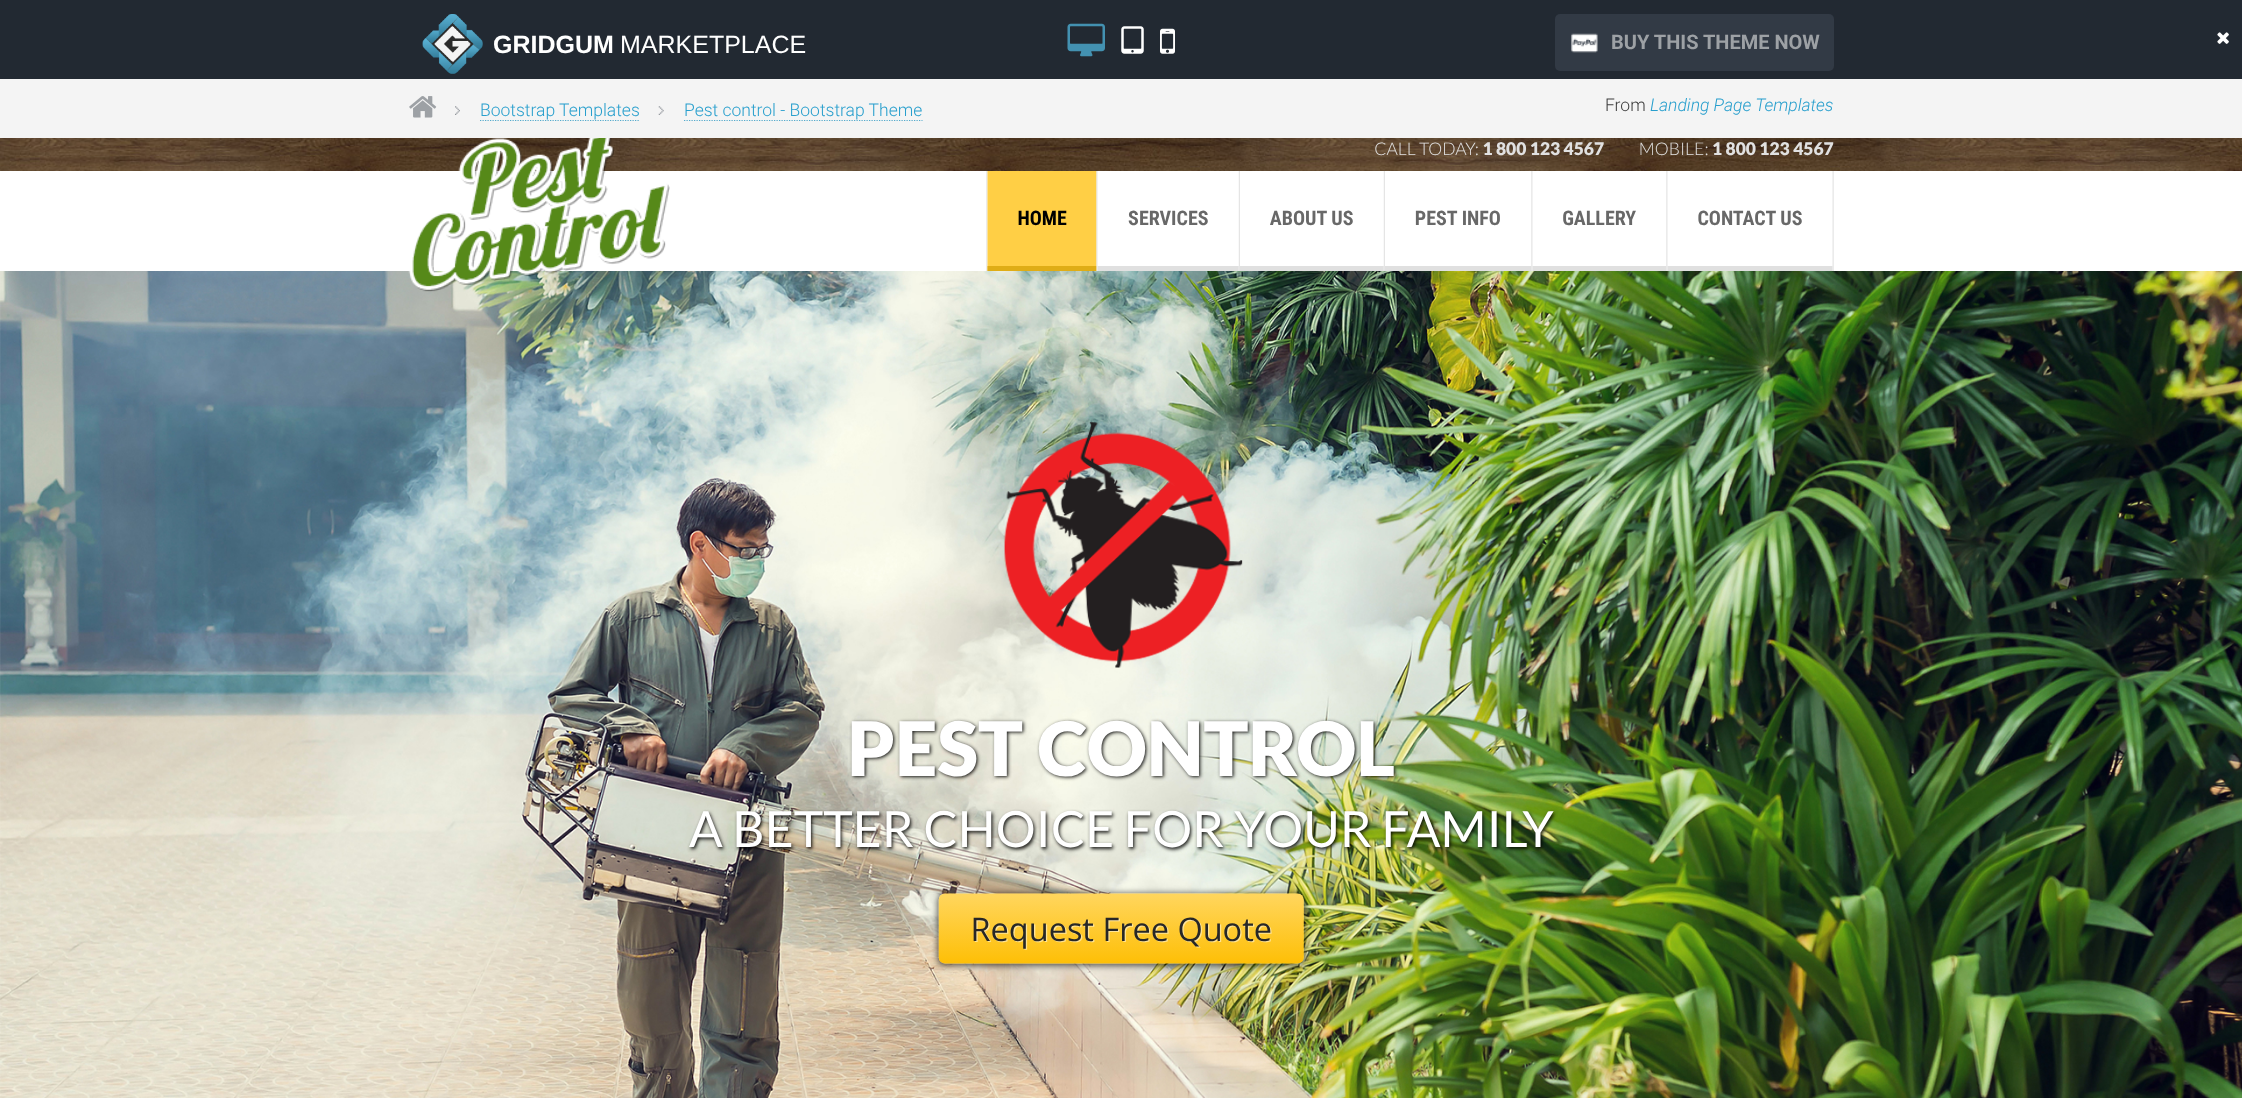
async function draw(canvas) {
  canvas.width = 2242
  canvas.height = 1098
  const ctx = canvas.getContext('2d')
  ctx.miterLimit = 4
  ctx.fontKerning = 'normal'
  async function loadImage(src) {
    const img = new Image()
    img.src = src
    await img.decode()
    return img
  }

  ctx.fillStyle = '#fff'
  ctx.fillRect(0, 0, 2242, 1098)
  ctx.fillStyle = '#222932'
  ctx.fillRect(0, 0, 2242, 79)
  ctx.drawImage(await loadImage('image0.png'), 422, 14, 61, 60)
  ctx.font = 'bold 25px Liberation Sans'
  ctx.fillStyle = '#fff'
  ctx.fillText('GRIDGUM', 493, 53)
  ctx.font = '25px Liberation Sans'
  ctx.fillText('MARKETPLACE', 620, 53)
  ctx.drawImage(await loadImage('image1.png'), 1067, 23, 38, 34)
  ctx.drawImage(await loadImage('image2.png'), 1121, 26, 23, 28)
  ctx.drawImage(await loadImage('image3.png'), 1160, 28, 15, 26)
  ctx.fillStyle = '#323a45'
  ctx.beginPath()
  ctx.roundRect(1555, 14, 279, 57, 5)
  ctx.fill()
  ctx.drawImage(await loadImage('image4.png'), 1571, 33, 27, 20)
  ctx.font = 'bold 20px Roboto'
  ctx.fillStyle = '#9da1a5'
  ctx.fillText('BUY THIS THEME NOW', 1611, 49)
  ctx.drawImage(await loadImage('image5.png'), 2217, 32, 12, 12)
  ctx.fillStyle = '#f4f4f4'
  ctx.fillRect(0, 79, 2242, 59)
  ctx.drawImage(await loadImage('image6.png'), 409, 96, 28, 22)
  ctx.drawImage(await loadImage('image7.png'), 455, 106, 5, 9)
  ctx.beginPath()
  ctx.moveTo(480, 120.5)
  ctx.lineTo(640, 120.5)
  ctx.strokeStyle = '#5ac'
  ctx.lineWidth = 1.2
  ctx.setLineDash([1.25, 1.25])
  ctx.stroke()
  ctx.font = '300 17.5px Roboto'
  ctx.fillStyle = '#289fcd'
  ctx.fillText('Bootstrap Templates', 480, 116)
  ctx.drawImage(await loadImage('image8.png'), 658, 106, 6, 9)
  ctx.beginPath()
  ctx.moveTo(684, 120.5)
  ctx.lineTo(922.5, 120.5)
  ctx.stroke()
  ctx.fillText('Pest control - Bootstrap Theme', 684, 116)
  ctx.fillStyle = '#3c3c3c'
  ctx.fillText('From', 1605, 111)
  ctx.font = 'italic 300 17.5px Roboto'
  ctx.fillStyle = '#289fcd'
  ctx.fillText('Landing Page Templates', 1650, 111)
  ctx.drawImage(await loadImage('image9.png'), 0, 138, 2242, 960)
}

draw(document.querySelector('canvas'))
